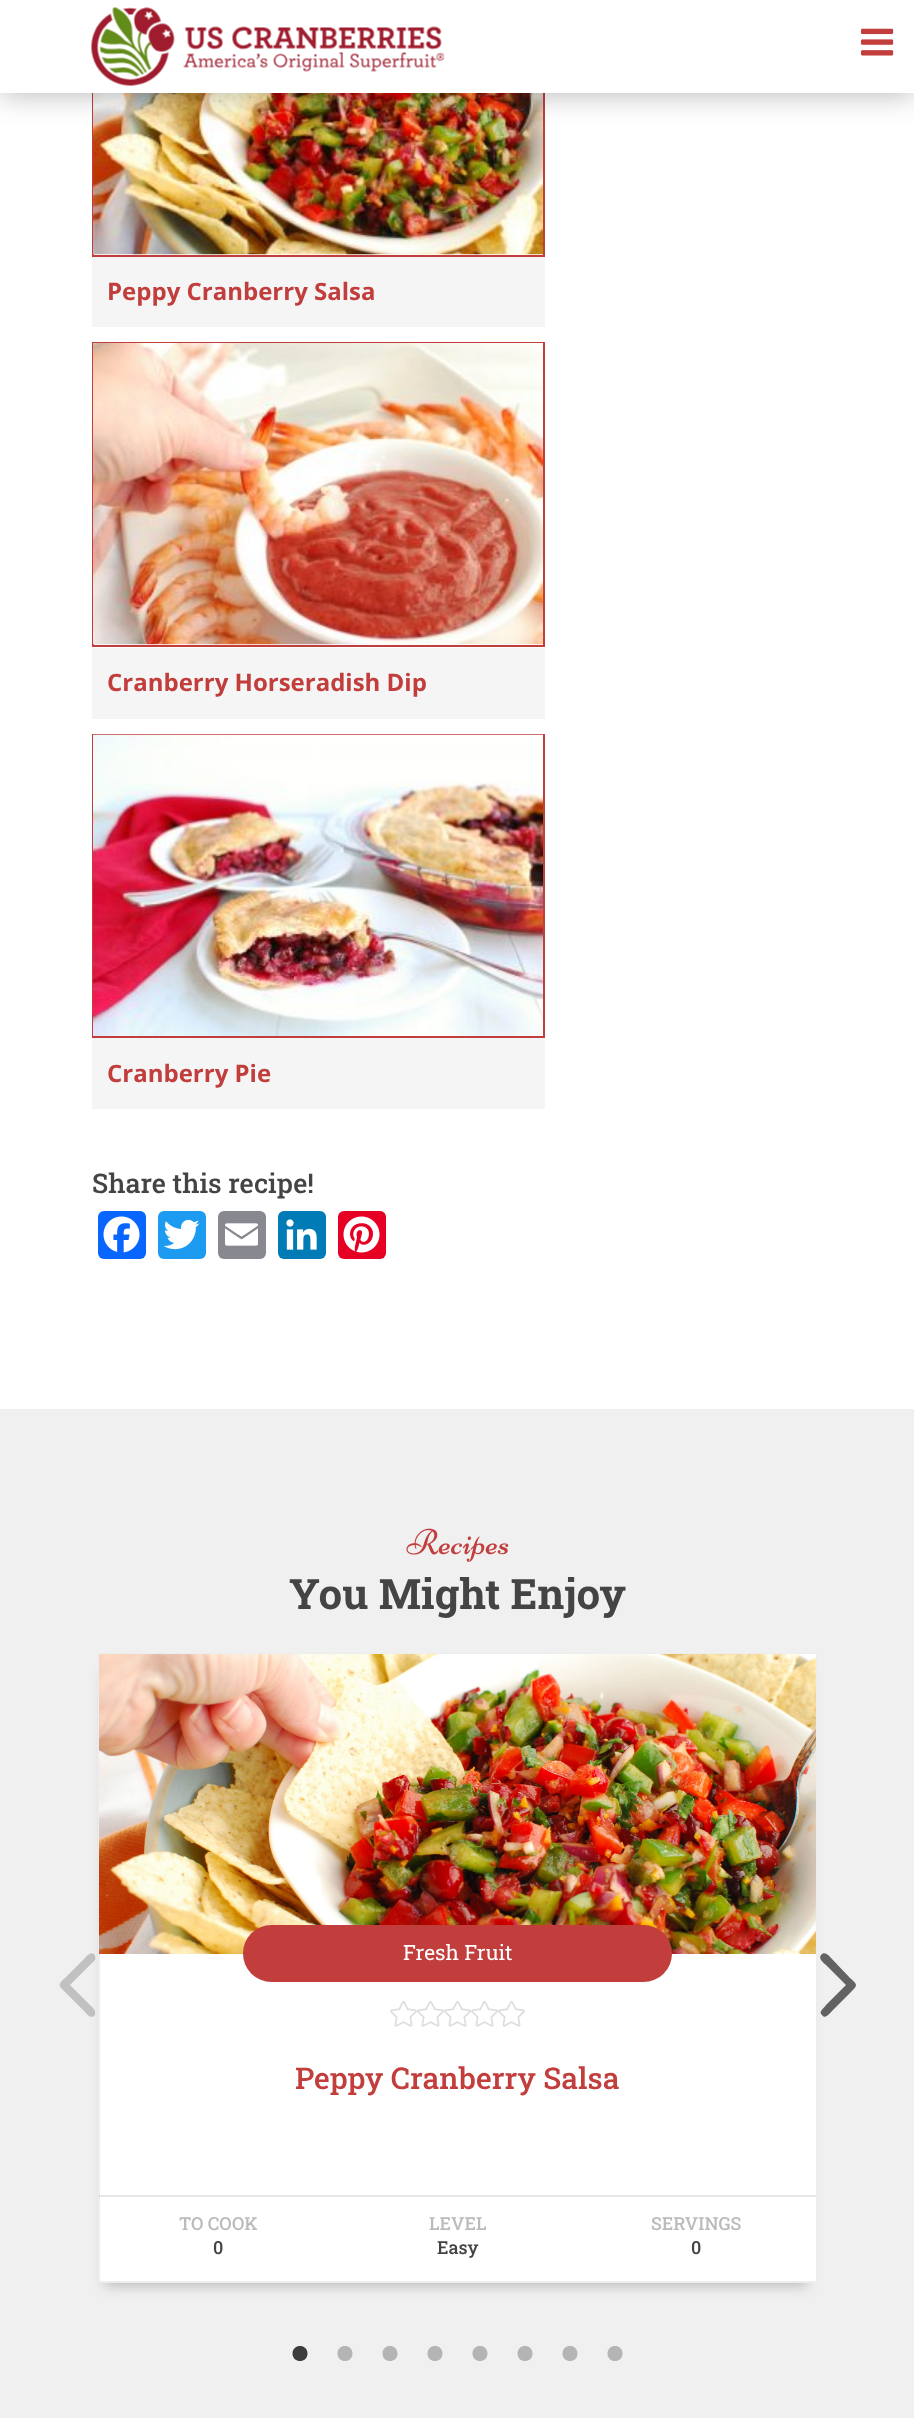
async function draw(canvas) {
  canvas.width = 914
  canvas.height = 2418
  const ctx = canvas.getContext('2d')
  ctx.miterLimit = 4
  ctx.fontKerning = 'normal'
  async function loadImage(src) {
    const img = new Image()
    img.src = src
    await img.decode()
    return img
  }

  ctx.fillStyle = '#fff'
  ctx.fillRect(0, 0, 914, 2418)
  ctx.strokeStyle = '#c13e3d'
  ctx.lineWidth = 2
  ctx.strokeRect(93, -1, 451, 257)
  ctx.drawImage(await loadImage('image2.png'), 93, 93, 450, 162)
  ctx.fillStyle = '#0000004d'
  ctx.filter = 'blur(15px)'
  ctx.beginPath()
  ctx.rect(0, 0, 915, 93)
  ctx.fill()
  ctx.filter = 'none'
  ctx.fillStyle = '#fff'
  ctx.fillRect(0, 0, 914, 93)
  ctx.drawImage(await loadImage('image0.png'), 91, 7, 354, 79)
  ctx.drawImage(await loadImage('image1.png'), 861, 28, 33, 28)
  ctx.fillStyle = '#f5f5f5'
  ctx.fillRect(92, 257, 453, 70)
  ctx.font = 'bold 24px Open Sans'
  ctx.fillStyle = '#c13e3d'
  ctx.fillText('Peppy Cranberry Salsa', 107, 300)
  ctx.strokeRect(93, 343, 451, 303)
  ctx.drawImage(await loadImage('image3.png'), 93, 343, 450, 302)
  ctx.fillStyle = '#f5f5f5'
  ctx.fillRect(92, 648, 453, 71)
  ctx.fillStyle = '#c13e3d'
  ctx.fillText('Cranberry Horseradish Dip', 107, 691)
  ctx.strokeRect(93, 735, 451, 302)
  ctx.drawImage(await loadImage('image4.png'), 93, 734, 450, 302)
  ctx.fillStyle = '#f5f5f5'
  ctx.fillRect(92, 1038, 453, 71)
  ctx.fillStyle = '#c13e3d'
  ctx.fillText('Cranberry Pie', 107, 1082)
  ctx.font = '500 27px Roboto Slab'
  ctx.fillStyle = '#444'
  ctx.fillText('Share this recipe!', 92, 1193)
  ctx.fillStyle = '#0866ff'
  ctx.beginPath()
  ctx.roundRect(98, 1211, 48, 48, 6)
  ctx.fill()
  ctx.drawImage(await loadImage('image5.png'), 103, 1216, 37, 37)
  ctx.fillStyle = '#1d9bf0'
  ctx.beginPath()
  ctx.roundRect(158, 1211, 48, 48, 6)
  ctx.fill()
  ctx.drawImage(await loadImage('image6.png'), 163, 1219, 37, 31)
  ctx.fillStyle = '#888990'
  ctx.beginPath()
  ctx.roundRect(218, 1211, 48, 48, 6)
  ctx.fill()
  ctx.drawImage(await loadImage('image7.png'), 225, 1223, 33, 23)
  ctx.fillStyle = '#007bb5'
  ctx.beginPath()
  ctx.roundRect(278, 1211, 48, 48, 6)
  ctx.fill()
  ctx.drawImage(await loadImage('image8.png'), 286, 1219, 31, 31)
  ctx.fillStyle = '#e60023'
  ctx.beginPath()
  ctx.roundRect(338, 1211, 48, 48, 6)
  ctx.fill()
  ctx.drawImage(await loadImage('image9.png'), 343, 1216, 37, 37)
  ctx.fillStyle = '#f0f0f0'
  ctx.fillRect(0, 1409, 914, 1009)
  ctx.drawImage(await loadImage('image10.png'), 406, 1528, 103, 34)
  ctx.font = 'bold 42px Roboto Slab'
  ctx.fillStyle = '#444'
  ctx.fillText('You Might Enjoy', 289, 1609)
  ctx.fillStyle = '#c1c1c1'
  ctx.beginPath()
  ctx.moveTo(61, 1988)
  ctx.lineTo(84, 2011)
  ctx.bezierCurveTo(86, 2013, 90, 2019, 94, 2016)
  ctx.bezierCurveTo(95, 2015, 95, 2014, 95, 2013)
  ctx.bezierCurveTo(96, 2010, 92, 2007, 90, 2005)
  ctx.lineTo(70, 1985)
  ctx.lineTo(95, 1960)
  ctx.bezierCurveTo(96, 1958, 95, 1956, 94, 1954)
  ctx.bezierCurveTo(90, 1951, 86, 1957, 84, 1959)
  ctx.lineTo(65, 1978)
  ctx.bezierCurveTo(63, 1980, 57, 1984, 61, 1988)
  ctx.closePath()
  ctx.fill()
  ctx.fillStyle = '#00000040'
  ctx.filter = 'blur(7px)'
  ctx.beginPath()
  ctx.rect(105, 1673, 702, 612)
  ctx.fill()
  ctx.filter = 'none'
  ctx.fillStyle = '#fff'
  ctx.fillRect(100, 1954, 716, 327)
  ctx.strokeStyle = '#ededed'
  ctx.strokeRect(99, 1654, 718, 628)
  ctx.drawImage(await loadImage('image11.png'), 99, 1654, 717, 300)
  ctx.fillStyle = '#c13e3d'
  ctx.beginPath()
  ctx.roundRect(243, 1925, 429, 57, 28.5)
  ctx.fill()
  ctx.font = '21px Roboto Slab'
  ctx.fillStyle = '#fff'
  ctx.fillText('Fresh Fruit', 403, 1960)
  ctx.drawImage(await loadImage('image12.png'), 390, 2001, 27, 26)
  ctx.drawImage(await loadImage('image12.png'), 417, 2001, 27, 26)
  ctx.drawImage(await loadImage('image12.png'), 444, 2001, 27, 26)
  ctx.drawImage(await loadImage('image12.png'), 471, 2001, 27, 26)
  ctx.drawImage(await loadImage('image12.png'), 498, 2001, 27, 26)
  ctx.font = '500 30px Roboto Slab'
  ctx.fillStyle = '#c13e3d'
  ctx.fillText('Peppy Cranberry Salsa', 295, 2089)
  ctx.fillStyle = '#44444421'
  ctx.fillRect(99, 2195, 717, 2)
  ctx.font = '500 18px Roboto Slab'
  ctx.fillStyle = '#bbb'
  ctx.fillText('TO COOK', 179, 2230)
  ctx.fillStyle = '#444'
  ctx.fillText('0', 213, 2254)
  ctx.fillStyle = '#bbb'
  ctx.fillText('LEVEL', 429, 2230)
  ctx.fillStyle = '#444'
  ctx.fillText('Easy', 437, 2254)
  ctx.fillStyle = '#bbb'
  ctx.fillText('SERVINGS', 651, 2230)
  ctx.fillStyle = '#444'
  ctx.fillText('0', 691, 2254)
  ctx.fillStyle = '#626262'
  ctx.beginPath()
  ctx.moveTo(822, 2015)
  ctx.bezierCurveTo(825, 2020, 830, 2013, 832, 2011)
  ctx.lineTo(850, 1993)
  ctx.bezierCurveTo(858, 1985, 858, 1985, 850, 1978)
  ctx.lineTo(832, 1959)
  ctx.bezierCurveTo(830, 1957, 825, 1950, 821, 1955)
  ctx.bezierCurveTo(818, 1959, 824, 1963, 826, 1965)
  ctx.lineTo(846, 1985)
  ctx.lineTo(826, 2005)
  ctx.bezierCurveTo(824, 2008, 818, 2012, 822, 2015)
  ctx.closePath()
  ctx.fill()
  ctx.fillStyle = '#3c3c3c'
  ctx.beginPath()
  ctx.moveTo(307.5, 2353.5)
  ctx.bezierCurveTo(307.5, 2343.5, 292.5, 2343.5, 292.5, 2353.5)
  ctx.bezierCurveTo(292.5, 2363.5, 307.5, 2363.5, 307.5, 2353.5)
  ctx.closePath()
  ctx.fill()
  ctx.fillStyle = '#b4b4b4'
  ctx.beginPath()
  ctx.moveTo(352.5, 2353.5)
  ctx.bezierCurveTo(352.5, 2343.5, 337.5, 2343.5, 337.5, 2353.5)
  ctx.bezierCurveTo(337.5, 2363.5, 352.5, 2363.5, 352.5, 2353.5)
  ctx.closePath()
  ctx.moveTo(397.5, 2353.5)
  ctx.bezierCurveTo(397.5, 2343.5, 382.5, 2343.5, 382.5, 2353.5)
  ctx.bezierCurveTo(382.5, 2363.5, 397.5, 2363.5, 397.5, 2353.5)
  ctx.closePath()
  ctx.fill()
  ctx.beginPath()
  ctx.moveTo(442.5, 2353.5)
  ctx.bezierCurveTo(442.5, 2343.5, 427.5, 2343.5, 427.5, 2353.5)
  ctx.bezierCurveTo(427.5, 2363.5, 442.5, 2363.5, 442.5, 2353.5)
  ctx.closePath()
  ctx.moveTo(487.5, 2353.5)
  ctx.bezierCurveTo(487.5, 2343.5, 472.5, 2343.5, 472.5, 2353.5)
  ctx.bezierCurveTo(472.5, 2363.5, 487.5, 2363.5, 487.5, 2353.5)
  ctx.closePath()
  ctx.fill()
  ctx.beginPath()
  ctx.moveTo(532.5, 2353.5)
  ctx.bezierCurveTo(532.5, 2343.5, 517.5, 2343.5, 517.5, 2353.5)
  ctx.bezierCurveTo(517.5, 2363.5, 532.5, 2363.5, 532.5, 2353.5)
  ctx.closePath()
  ctx.moveTo(577.5, 2353.5)
  ctx.bezierCurveTo(577.5, 2343.5, 562.5, 2343.5, 562.5, 2353.5)
  ctx.bezierCurveTo(562.5, 2363.5, 577.5, 2363.5, 577.5, 2353.5)
  ctx.closePath()
  ctx.fill()
  ctx.beginPath()
  ctx.moveTo(622.5, 2353.5)
  ctx.bezierCurveTo(622.5, 2343.5, 607.5, 2343.5, 607.5, 2353.5)
  ctx.bezierCurveTo(607.5, 2363.5, 622.5, 2363.5, 622.5, 2353.5)
  ctx.closePath()
  ctx.fill()
}

draw(document.querySelector('canvas'))
